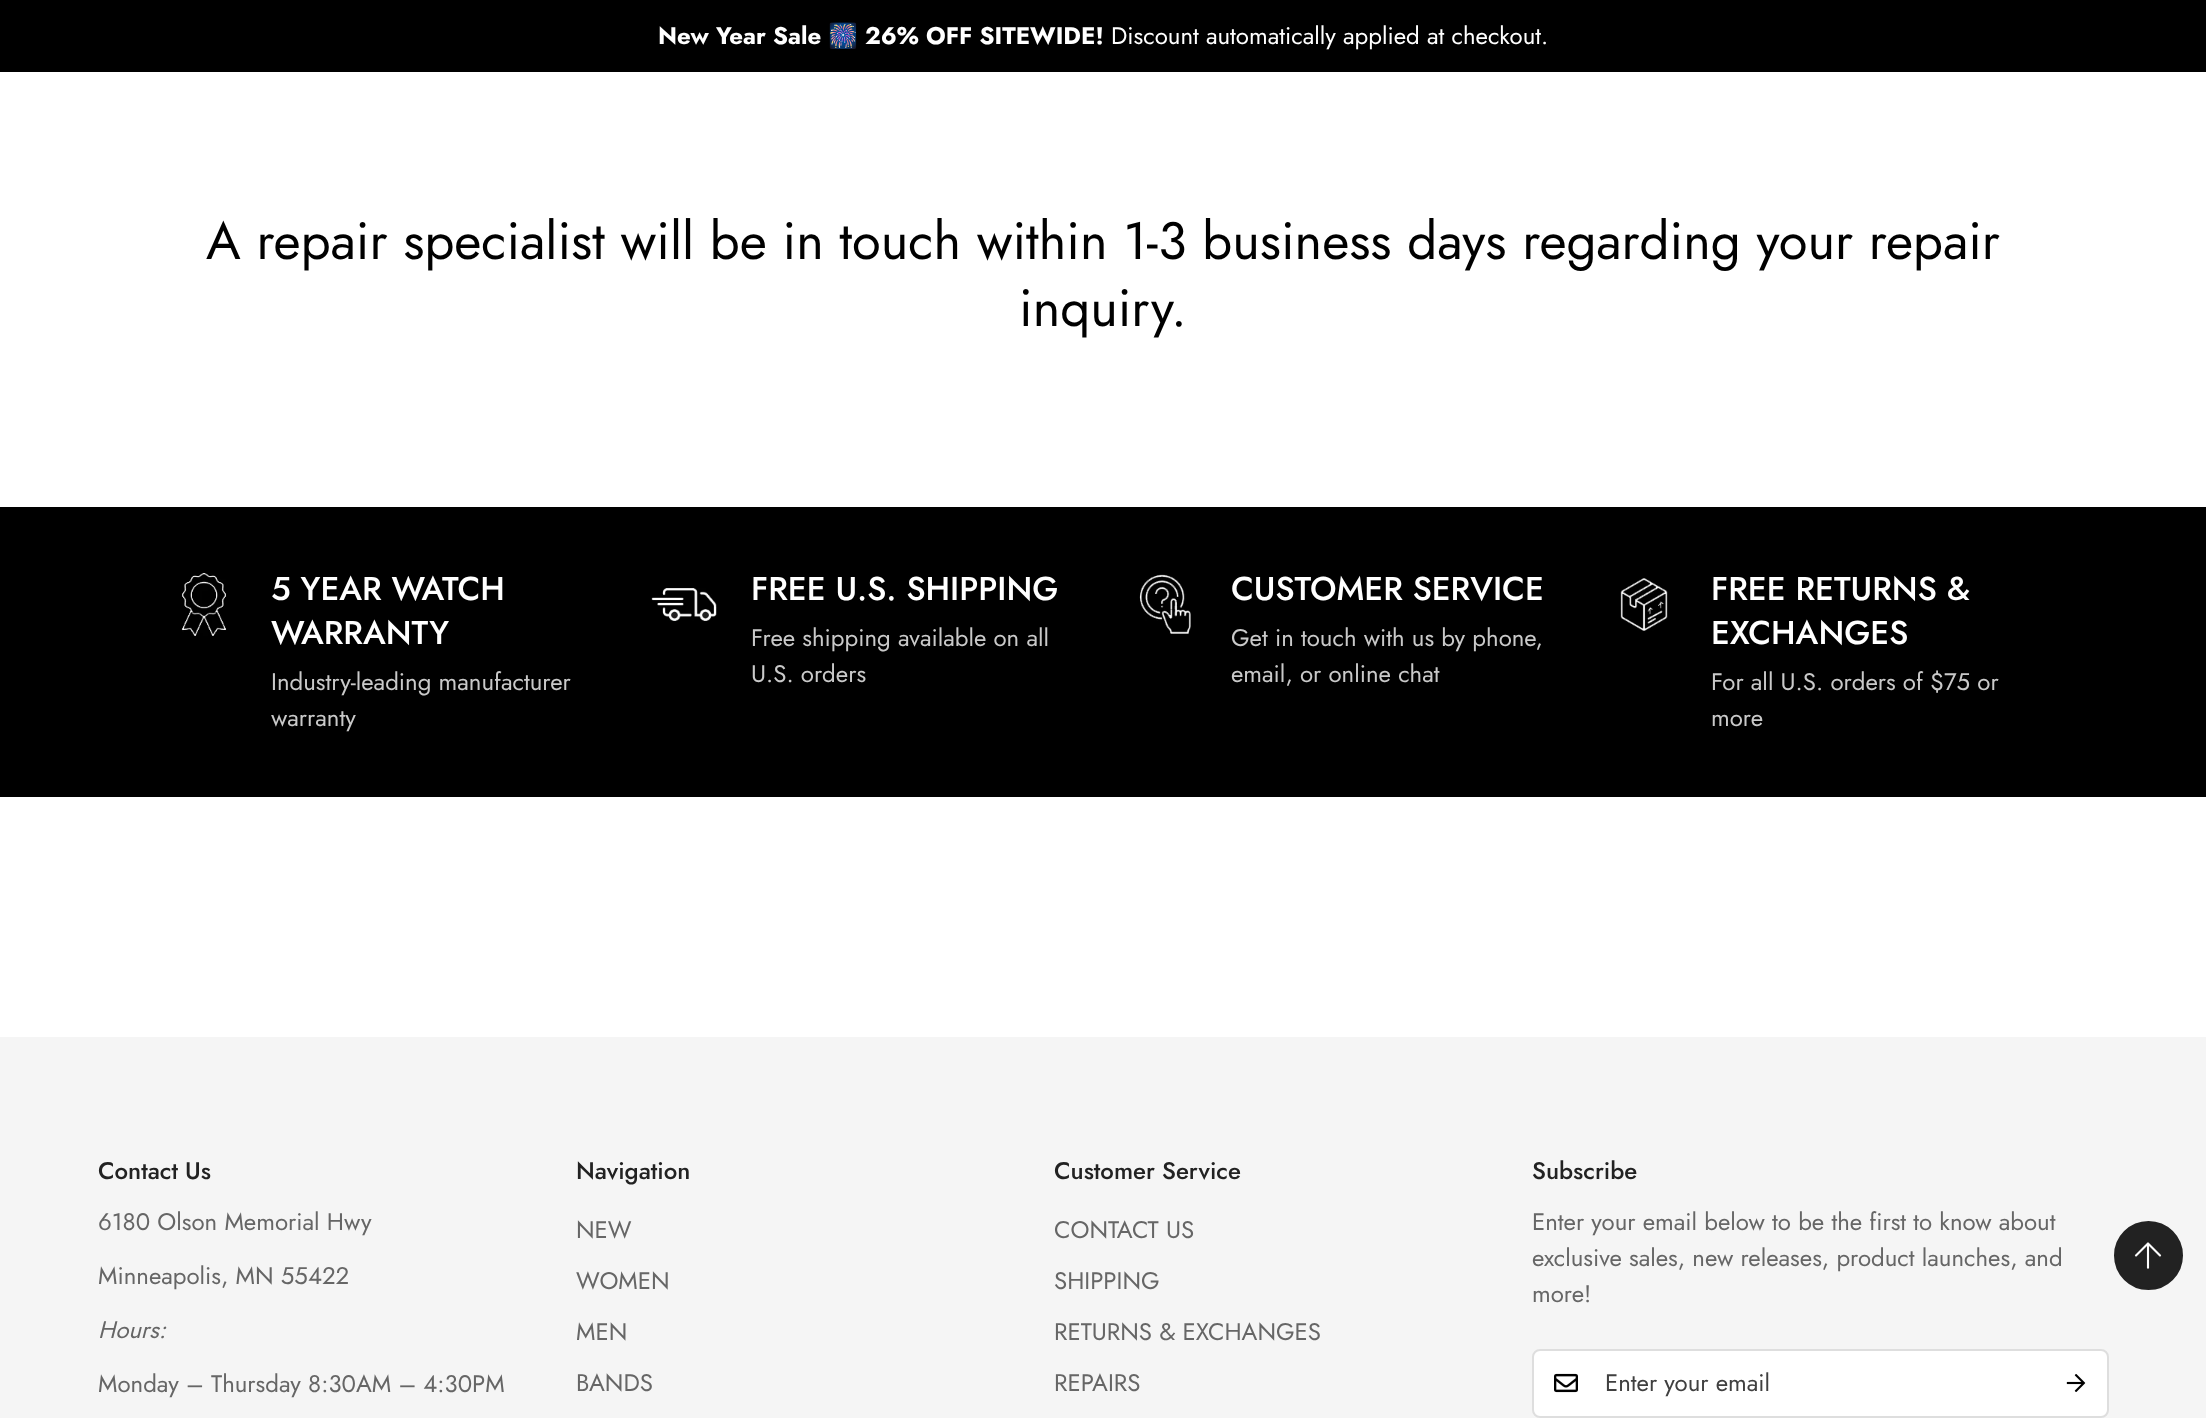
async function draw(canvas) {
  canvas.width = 2206
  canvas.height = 1418
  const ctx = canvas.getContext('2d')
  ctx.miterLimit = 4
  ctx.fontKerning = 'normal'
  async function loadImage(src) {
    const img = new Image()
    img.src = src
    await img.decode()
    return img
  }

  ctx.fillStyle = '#fff'
  ctx.fillRect(0, 0, 2206, 1418)
  ctx.fillStyle = '#000'
  ctx.fillRect(0, 0, 2206, 72)
  ctx.font = 'bold 24px Jost'
  ctx.fillStyle = '#fff'
  ctx.fillText('New Year Sale', 658, 44)
  ctx.font = 'bold 24px Noto Color Emoji'
  ctx.fillText('🎆', 828, 44)
  ctx.font = 'bold 24px Jost'
  ctx.fillText('26% OFF SITEWIDE!', 865, 44)
  ctx.font = '24px Jost'
  ctx.fillText('Discount automatically applied at checkout.', 1111, 44)
  ctx.font = '52.5px Jost'
  ctx.fillStyle = '#000'
  ctx.fillText('A repair specialist will be in touch within 1-3 business days regarding your repair', 206, 259)
  ctx.fillText('inquiry.', 1019, 326)
  ctx.fillRect(0, 507, 2206, 290)
  ctx.drawImage(await loadImage('image0.png'), 181, 573, 46, 63)
  ctx.font = '500 33px Jost'
  ctx.fillStyle = '#fff'
  ctx.fillText('5 YEAR WATCH', 271, 600)
  ctx.fillText('WARRANTY', 271, 644)
  ctx.font = '24px Jost'
  ctx.fillStyle = '#c9c9c9'
  ctx.fillText('Industry-leading manufacturer', 271, 690)
  ctx.fillText('warranty', 271, 726)
  ctx.drawImage(await loadImage('image1.png'), 651, 588, 66, 33)
  ctx.font = '500 33px Jost'
  ctx.fillStyle = '#fff'
  ctx.fillText('FREE U.S. SHIPPING', 751, 600)
  ctx.font = '24px Jost'
  ctx.fillStyle = '#c9c9c9'
  ctx.fillText('Free shipping available on all', 751, 646)
  ctx.fillText('U.S. orders', 751, 682)
  ctx.drawImage(await loadImage('image2.png'), 1139, 574, 52, 60)
  ctx.font = '500 33px Jost'
  ctx.fillStyle = '#fff'
  ctx.fillText('CUSTOMER SERVICE', 1231, 600)
  ctx.font = '24px Jost'
  ctx.fillStyle = '#c9c9c9'
  ctx.fillText('Get in touch with us by phone,', 1231, 646)
  ctx.fillText('email, or online chat', 1231, 682)
  ctx.drawImage(await loadImage('image3.png'), 1620, 578, 48, 53)
  ctx.font = '500 33px Jost'
  ctx.fillStyle = '#fff'
  ctx.fillText('FREE RETURNS &', 1711, 600)
  ctx.fillText('EXCHANGES', 1711, 644)
  ctx.font = '24px Jost'
  ctx.fillStyle = '#c9c9c9'
  ctx.fillText('For all U.S. orders of $75 or', 1711, 690)
  ctx.fillText('more', 1711, 726)
  ctx.fillStyle = '#f5f5f5'
  ctx.fillRect(0, 1037, 2206, 381)
  ctx.font = '500 24px Jost'
  ctx.fillStyle = '#222'
  ctx.fillText('Contact Us', 98, 1179)
  ctx.font = '24px Jost'
  ctx.fillStyle = '#666'
  ctx.fillText('6180 Olson Memorial Hwy', 98, 1230)
  ctx.fillText('Minneapolis, MN 55422', 98, 1284)
  ctx.font = 'italic 24px Jost'
  ctx.fillText('Hours:', 98, 1338)
  ctx.font = '24px Jost'
  ctx.fillText('Monday – Thursday 8:30AM – 4:30PM', 98, 1392)
  ctx.font = '500 24px Jost'
  ctx.fillStyle = '#222'
  ctx.fillText('Navigation', 576, 1179)
  ctx.font = '24px Jost'
  ctx.fillStyle = '#666'
  ctx.fillText('NEW', 576, 1238)
  ctx.fillText('WOMEN', 576, 1289)
  ctx.fillText('MEN', 576, 1340)
  ctx.fillText('BANDS', 576, 1391)
  ctx.font = '500 24px Jost'
  ctx.fillStyle = '#222'
  ctx.fillText('Customer Service', 1054, 1179)
  ctx.font = '24px Jost'
  ctx.fillStyle = '#666'
  ctx.fillText('CONTACT US', 1054, 1238)
  ctx.fillText('SHIPPING', 1054, 1289)
  ctx.fillText('RETURNS & EXCHANGES', 1054, 1340)
  ctx.fillText('REPAIRS', 1054, 1391)
  ctx.font = '500 24px Jost'
  ctx.fillStyle = '#222'
  ctx.fillText('Subscribe', 1532, 1179)
  ctx.font = '24px Jost'
  ctx.fillStyle = '#666'
  ctx.fillText('Enter your email below to be the first to know about', 1532, 1230)
  ctx.fillText('exclusive sales, new releases, product launches, and', 1532, 1266)
  ctx.fillText('more!', 1532, 1302)
  ctx.fillStyle = '#fff'
  ctx.beginPath()
  ctx.roundRect(1533, 1350, 575, 67, 7)
  ctx.fill()
  ctx.strokeStyle = '#dedede'
  ctx.lineWidth = 2
  ctx.stroke()
  ctx.drawImage(await loadImage('image4.png'), 1554, 1373, 24, 20)
  ctx.fillStyle = '#404040'
  ctx.fillText('Enter your email', 1605, 1391)
  ctx.drawImage(await loadImage('image5.png'), 2066, 1374, 20, 18)
  ctx.fillStyle = '#222'
  ctx.beginPath()
  ctx.arc(2148.5, 1255.5, 33.5, 0, 2 * Math.PI)
  ctx.fill()
  ctx.strokeStyle = '#222'
  ctx.stroke()
  ctx.drawImage(await loadImage('image6.png'), 2134, 1242, 28, 27)
}

draw(document.querySelector('canvas'))
